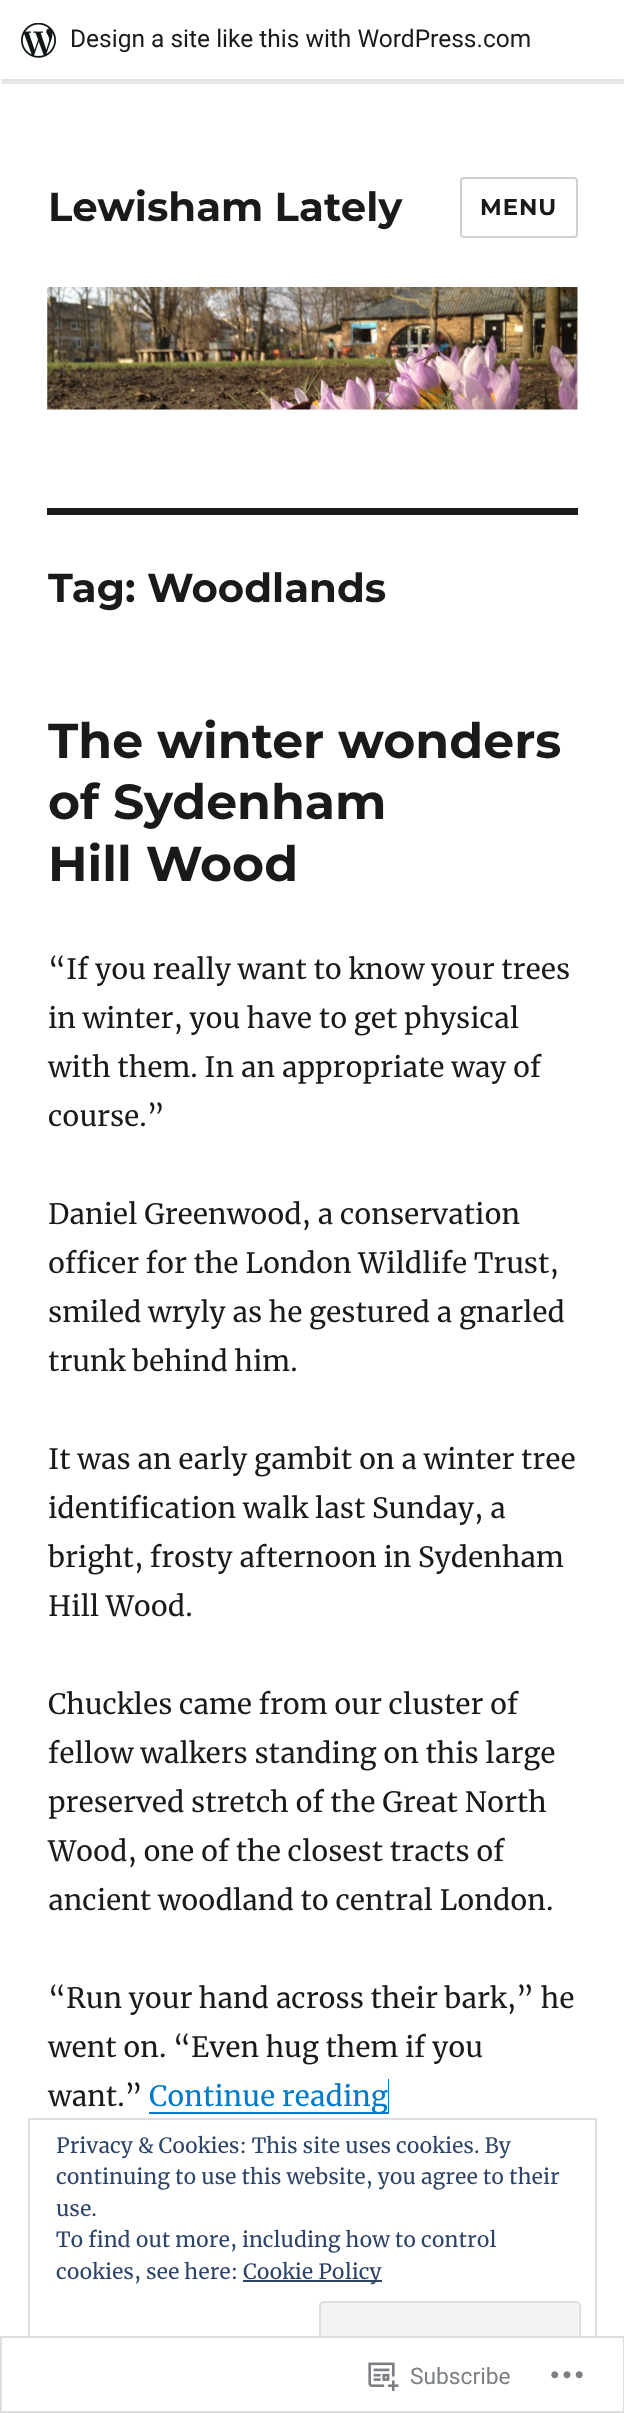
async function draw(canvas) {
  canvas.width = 624
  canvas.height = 2413
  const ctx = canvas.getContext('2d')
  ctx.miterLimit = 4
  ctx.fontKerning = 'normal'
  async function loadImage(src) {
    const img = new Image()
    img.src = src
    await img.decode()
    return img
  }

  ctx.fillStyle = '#fff'
  ctx.fillRect(0, 0, 624, 2413)
  ctx.fillStyle = '#0000000d'
  ctx.filter = 'blur(2px)'
  ctx.beginPath()
  ctx.rect(0, 2, 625, 79)
  ctx.fill()
  ctx.filter = 'none'
  ctx.fillStyle = '#00000014'
  ctx.beginPath()
  ctx.moveTo(2, 79)
  ctx.lineTo(2, 84)
  ctx.lineTo(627, 84)
  ctx.lineTo(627, 5)
  ctx.lineTo(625, 5)
  ctx.lineTo(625, 79)
  ctx.closePath()
  ctx.fill()
  ctx.fillStyle = '#fff'
  ctx.fillRect(0, 0, 624, 79)
  ctx.drawImage(await loadImage('image0.png'), 21, 23, 35, 35)
  ctx.font = '24.5px Roboto'
  ctx.fillStyle = '#1a1a1a'
  ctx.fillText('Design a site like this with WordPress.com', 70, 47)
  ctx.font = '100 40.25px Montserrat'
  ctx.fillText('Lewisham Lately', 48, 221)
  ctx.beginPath()
  ctx.roundRect(461, 178, 116, 59, 3)
  ctx.strokeStyle = '#d1d1d1'
  ctx.lineWidth = 2
  ctx.stroke()
  ctx.letterSpacing = '1px'
  ctx.font = '100 22.75px Montserrat'
  ctx.fillText('MENU', 480, 215)
  ctx.drawImage(await loadImage('image1.png'), 47, 287, 531, 123)
  ctx.fillRect(47, 508, 531, 7)
  ctx.letterSpacing = '0px'
  ctx.font = '100 40.25px Montserrat'
  ctx.fillText('Tag: Woodlands', 48, 602)
  ctx.font = '100 49px Montserrat'
  ctx.fillText('The winter wonders', 48, 758)
  ctx.fillText('of Sydenham', 48, 819)
  ctx.fillText('Hill Wood', 48, 881)
  ctx.font = '28px Merriweather'
  ctx.fillText('“If you really want to know your trees', 48, 979)
  ctx.fillText('in winter, you have to get physical', 48, 1028)
  ctx.fillText('with them. In an appropriate way of', 48, 1077)
  ctx.fillText('course.”', 48, 1126)
  ctx.fillText('Daniel Greenwood, a conservation', 48, 1224)
  ctx.fillText('officer for the London Wildlife Trust,', 48, 1273)
  ctx.fillText('smiled wryly as he gestured a gnarled', 48, 1322)
  ctx.fillText('trunk behind him.', 48, 1371)
  ctx.fillText('It was an early gambit on a winter tree', 48, 1469)
  ctx.fillText('identification walk last Sunday, a', 48, 1518)
  ctx.fillText('bright, frosty afternoon in Sydenham', 48, 1567)
  ctx.fillText('Hill Wood.', 48, 1616)
  ctx.fillText('Chuckles came from our cluster of', 48, 1714)
  ctx.fillText('fellow walkers standing on this large', 48, 1763)
  ctx.fillText('preserved stretch of the Great North', 48, 1812)
  ctx.fillText('Wood, one of the closest tracts of', 48, 1861)
  ctx.fillText('ancient woodland to central London.', 48, 1910)
  ctx.fillText('“Run your hand across their bark,” he', 48, 2008)
  ctx.fillText('went on. “Even hug them if you', 48, 2057)
  ctx.fillText('want.”', 48, 2106)
  ctx.fillStyle = '#007acc'
  ctx.beginPath()
  ctx.moveTo(149, 2112)
  ctx.lineTo(149, 2114)
  ctx.lineTo(389, 2114)
  ctx.lineTo(389, 2079)
  ctx.lineTo(388, 2079)
  ctx.lineTo(388, 2112)
  ctx.closePath()
  ctx.fill()
  ctx.fillText('Continue reading', 149, 2106)
  ctx.strokeStyle = '#dedede'
  ctx.strokeRect(29, 2119, 567, 265)
  ctx.font = '21px Merriweather'
  ctx.fillStyle = '#2e4467'
  ctx.fillText('Privacy & Cookies: This site uses cookies. By', 56, 2153)
  ctx.fillText('continuing to use this website, you agree to their', 56, 2184)
  ctx.fillText('use.', 56, 2216)
  ctx.fillText('To find out more, including how to control', 56, 2247)
  ctx.fillText('cookies, see here:', 56, 2279)
  ctx.fillRect(243, 2280, 139, 2)
  ctx.fillText('Cookie Policy', 243, 2279)
  ctx.fillStyle = '#f3f3f3'
  ctx.beginPath()
  ctx.roundRect(320, 2302, 260, 67, 4)
  ctx.fill()
  ctx.stroke()
  ctx.fillStyle = '#fffffffa'
  ctx.fillRect(28, 2336, 569, 49)
  ctx.strokeStyle = '#dcdcdefa'
  ctx.strokeRect(1, 2337, 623, 75)
  ctx.drawImage(await loadImage('image2.png'), 368, 2362, 31, 29)
  ctx.font = '22.75px Roboto'
  ctx.fillStyle = '#7b7f84'
  ctx.fillText('Subscribe', 410, 2384)
  ctx.drawImage(await loadImage('image3.png'), 551, 2371, 32, 8)
}

draw(document.querySelector('canvas'))
